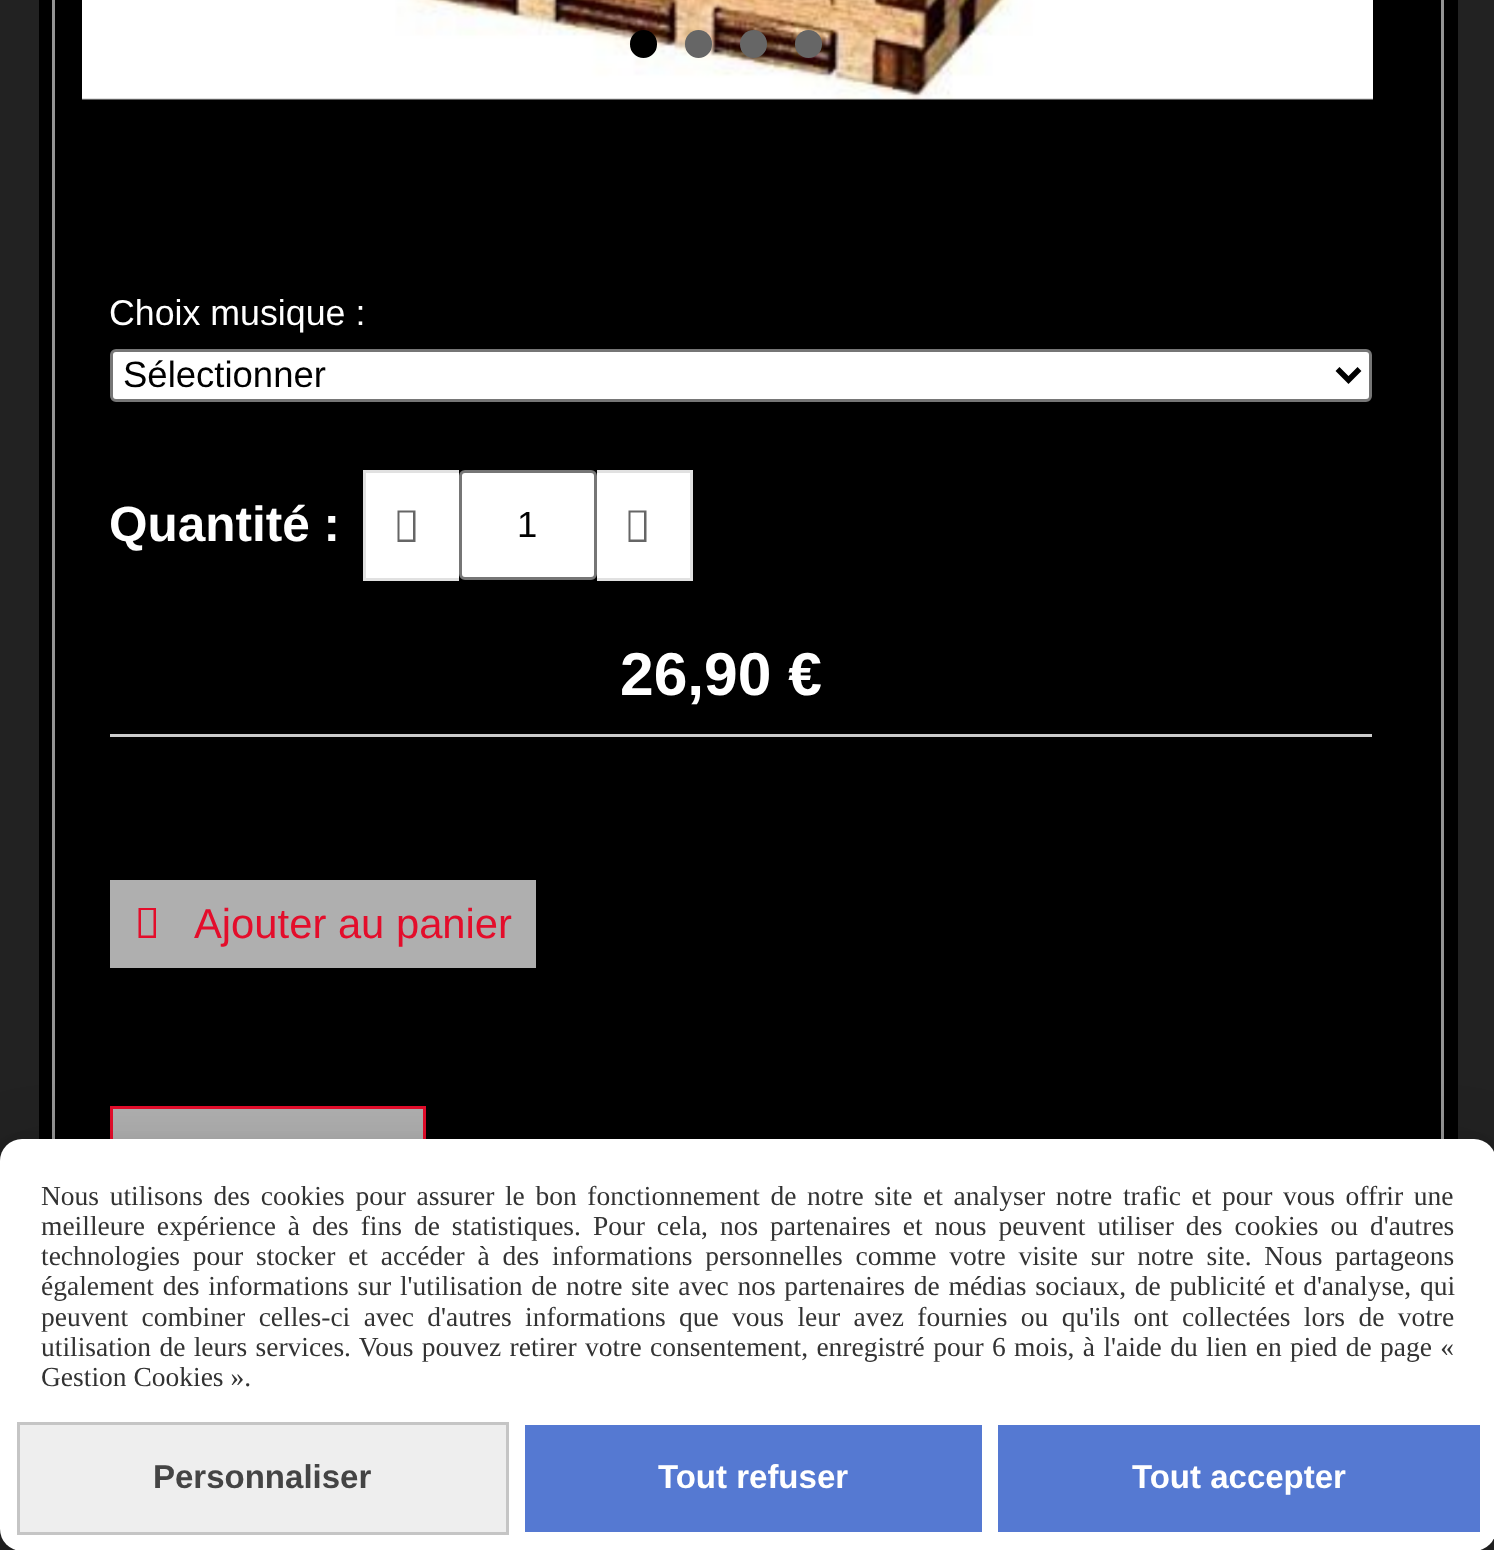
async function draw(canvas) {
  canvas.width = 1494
  canvas.height = 1550
  const ctx = canvas.getContext('2d')
  ctx.miterLimit = 4
  ctx.fontKerning = 'normal'
  async function loadImage(src) {
    const img = new Image()
    img.src = src
    await img.decode()
    return img
  }

  ctx.fillStyle = '#222'
  ctx.fillRect(0, 0, 1494, 1550)
  ctx.fillStyle = '#000'
  ctx.fillRect(39, 0, 1419, 1139)
  ctx.strokeStyle = '#949494'
  ctx.lineWidth = 3
  ctx.strokeRect(53.5, -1.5, 1389, 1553)
  ctx.drawImage(await loadImage('image0.png'), 82, 0, 1291, 100)
  ctx.beginPath()
  ctx.roundRect(630, 30, 27, 28, 13.5)
  ctx.fill()
  ctx.fillStyle = '#666'
  ctx.beginPath()
  ctx.roundRect(685, 30, 27, 28, 13.5)
  ctx.fill()
  ctx.beginPath()
  ctx.roundRect(740, 30, 27, 28, 13.5)
  ctx.fill()
  ctx.beginPath()
  ctx.roundRect(795, 30, 27, 28, 13.5)
  ctx.fill()
  ctx.font = '35.75px Liberation Sans'
  ctx.fillStyle = '#fff'
  ctx.fillText('Choix musique :', 109, 325)
  ctx.beginPath()
  ctx.roundRect(111.5, 350.5, 1259, 50, 4.5)
  ctx.fill()
  ctx.strokeStyle = '#767676'
  ctx.stroke()
  ctx.beginPath()
  ctx.moveTo(1337.5, 369)
  ctx.lineTo(1348.5, 380)
  ctx.lineTo(1359.5, 369)
  ctx.strokeStyle = '#000'
  ctx.lineWidth = 5.5
  ctx.stroke()
  ctx.font = '36.5px Liberation Sans'
  ctx.fillStyle = '#000'
  ctx.fillText('Sélectionner', 123, 387)
  ctx.font = 'bold 49.5px Liberation Sans'
  ctx.fillStyle = '#fff'
  ctx.fillText('Quantité :', 109, 541)
  ctx.fillRect(366, 473, 93, 105)
  ctx.fillStyle = '#e1e1e1'
  ctx.fillRect(363, 470, 96, 3)
  ctx.fillRect(363, 578, 96, 3)
  ctx.fillRect(363, 470, 3, 110)
  ctx.fillStyle = '#666'
  ctx.beginPath()
  ctx.moveTo(397.5, 542)
  ctx.lineTo(397.5, 510.5)
  ctx.lineTo(415.5, 510.5)
  ctx.lineTo(415.5, 542)
  ctx.closePath()
  ctx.moveTo(399.5, 539.5)
  ctx.lineTo(413, 539.5)
  ctx.lineTo(413, 512.5)
  ctx.lineTo(399.5, 512.5)
  ctx.closePath()
  ctx.fill()
  ctx.fillStyle = '#fff'
  ctx.beginPath()
  ctx.roundRect(460.5, 471.5, 135, 107, 4.5)
  ctx.fill()
  ctx.strokeStyle = '#767676'
  ctx.lineWidth = 3
  ctx.stroke()
  ctx.font = '36.5px Liberation Sans'
  ctx.fillStyle = '#000'
  ctx.fillText('1', 517, 537)
  ctx.fillStyle = '#fff'
  ctx.fillRect(597, 473, 93, 105)
  ctx.fillStyle = '#e1e1e1'
  ctx.fillRect(597, 470, 96, 3)
  ctx.fillRect(690, 470, 3, 110)
  ctx.fillRect(597, 578, 96, 3)
  ctx.fillStyle = '#666'
  ctx.beginPath()
  ctx.moveTo(628.5, 542)
  ctx.lineTo(628.5, 510.5)
  ctx.lineTo(646.5, 510.5)
  ctx.lineTo(646.5, 542)
  ctx.closePath()
  ctx.moveTo(630.5, 539.5)
  ctx.lineTo(644, 539.5)
  ctx.lineTo(644, 512.5)
  ctx.lineTo(630.5, 512.5)
  ctx.closePath()
  ctx.fill()
  ctx.fillStyle = '#ccc'
  ctx.fillRect(110, 734, 1262, 3)
  ctx.font = 'bold 60.5px Liberation Sans'
  ctx.fillStyle = '#fff'
  ctx.fillText('26,90 €', 620, 695)
  ctx.fillStyle = '#afafaf'
  ctx.fillRect(110, 880, 426, 88)
  ctx.fillStyle = '#e40d2b'
  ctx.beginPath()
  ctx.moveTo(138.5, 938)
  ctx.lineTo(138.5, 908)
  ctx.lineTo(156, 908)
  ctx.lineTo(156, 938)
  ctx.closePath()
  ctx.moveTo(141, 935.5)
  ctx.lineTo(153.5, 935.5)
  ctx.lineTo(153.5, 910)
  ctx.lineTo(141, 910)
  ctx.closePath()
  ctx.fill()
  ctx.font = '41.75px Liberation Sans'
  ctx.fillText('Ajouter au panier', 194, 938)
  ctx.fillStyle = '#afafaf'
  ctx.fillRect(113, 1109, 310, 30)
  ctx.strokeStyle = '#e40d2b'
  ctx.strokeRect(111.5, 1107.5, 313, 96)
  ctx.fillStyle = '#0000000d'
  ctx.filter = 'blur(8px)'
  ctx.beginPath()
  ctx.roundRect(0, 1144, 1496, 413, 22)
  ctx.fill()
  ctx.filter = 'none'
  ctx.fillStyle = '#00000026'
  ctx.filter = 'blur(33px)'
  ctx.beginPath()
  ctx.roundRect(0, 1150, 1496, 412, 22)
  ctx.fill()
  ctx.filter = 'none'
  ctx.fillStyle = '#fff'
  ctx.beginPath()
  ctx.roundRect(0, 1139, 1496, 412, 22)
  ctx.fill()
  ctx.wordSpacing = '3.75px'
  ctx.font = '27.5px Liberation Serif'
  ctx.fillStyle = '#333'
  ctx.fillText('Nous utilisons des cookies pour assurer le bon fonctionnement de notre site et analyser notre trafic et pour vous offrir une', 41, 1205)
  ctx.wordSpacing = '5.1px'
  ctx.fillText('meilleure expérience à des fins de statistiques. Pour cela, nos partenaires et nous peuvent utiliser des cookies ou d\'autres', 41, 1235)
  ctx.wordSpacing = '5.9px'
  ctx.fillText('technologies pour stocker et accéder à des informations personnelles comme votre visite sur notre site. Nous partageons', 41, 1265)
  ctx.wordSpacing = '1.9px'
  ctx.fillText('également des informations sur l\'utilisation de notre site avec nos partenaires de médias sociaux, de publicité et d\'analyse, qui', 41, 1295)
  ctx.wordSpacing = '6.5px'
  ctx.fillText('peuvent combiner celles-ci avec d\'autres informations que vous leur avez fournies ou qu\'ils ont collectées lors de votre', 41, 1326)
  ctx.wordSpacing = '1.5px'
  ctx.fillText('utilisation de leurs services. Vous pouvez retirer votre consentement, enregistré pour 6 mois, à l\'aide du lien en pied de page «', 41, 1356)
  ctx.wordSpacing = '0px'
  ctx.fillText('Gestion Cookies ».', 41, 1386)
  ctx.fillStyle = '#eee'
  ctx.beginPath()
  ctx.rect(18.5, 1423.5, 489, 110)
  ctx.fill()
  ctx.strokeStyle = '#c5c5c5'
  ctx.stroke()
  ctx.font = 'bold 33px Liberation Sans'
  ctx.fillStyle = '#444'
  ctx.fillText('Personnaliser', 153, 1488)
  ctx.fillStyle = '#5579d2'
  ctx.fillRect(525, 1425, 457, 107)
  ctx.fillStyle = '#fff'
  ctx.fillText('Tout refuser', 658, 1488)
  ctx.fillStyle = '#5579d2'
  ctx.fillRect(998, 1425, 482, 107)
  ctx.fillStyle = '#fff'
  ctx.fillText('Tout accepter', 1132, 1488)
}

draw(document.querySelector('canvas'))
